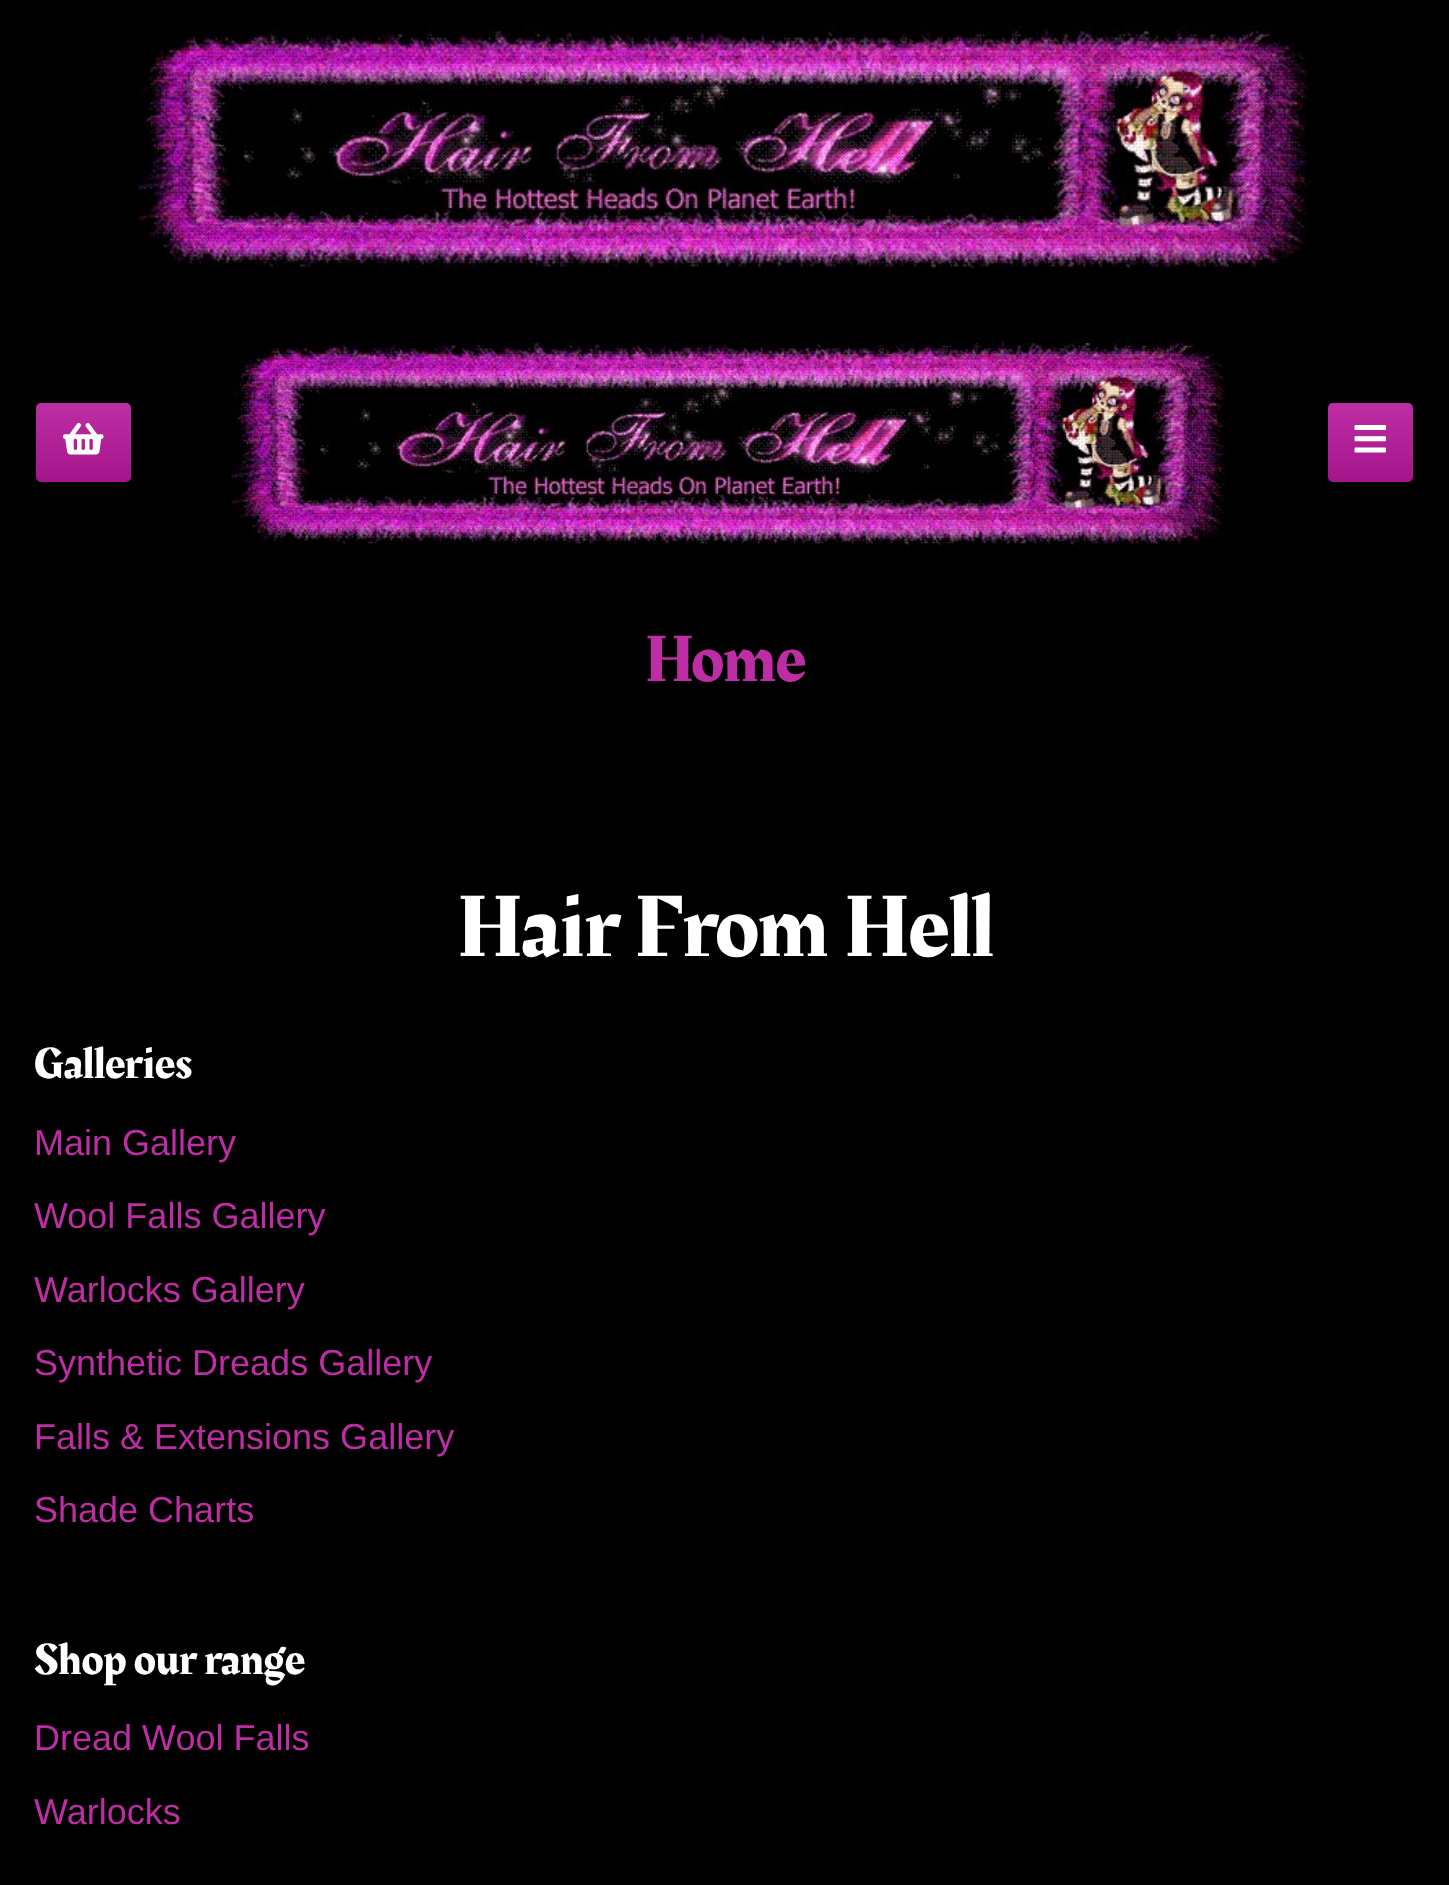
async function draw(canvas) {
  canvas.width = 1449
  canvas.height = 1885
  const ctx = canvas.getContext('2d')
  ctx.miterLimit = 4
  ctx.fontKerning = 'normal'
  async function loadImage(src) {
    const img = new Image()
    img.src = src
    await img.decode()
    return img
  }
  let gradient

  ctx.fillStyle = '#000'
  ctx.fillRect(0, 0, 1449, 1885)
  ctx.drawImage(await loadImage('image0.png'), 137, 25, 1174, 243)
  gradient = ctx.createLinearGradient(83, 403, 83, 482)
  gradient.addColorStop(0, '#bd2da4')
  gradient.addColorStop(1, '#a4148b')
  ctx.fillStyle = gradient
  ctx.beginPath()
  ctx.roundRect(36, 403, 95, 79, 5)
  ctx.fill()
  ctx.drawImage(await loadImage('image1.png'), 63, 423, 41, 32)
  ctx.drawImage(await loadImage('image2.png'), 230, 337, 998, 208)
  gradient = ctx.createLinearGradient(1370, 403, 1370, 482)
  gradient.addColorStop(0, '#bd2da4')
  gradient.addColorStop(1, '#a4148b')
  ctx.fillStyle = gradient
  ctx.beginPath()
  ctx.roundRect(1328, 403, 85, 79, 5)
  ctx.fill()
  ctx.drawImage(await loadImage('image3.png'), 1354, 425, 32, 28)
  ctx.font = '67.5px Rakkas'
  ctx.fillStyle = '#bd2da4'
  ctx.fillText('Home', 644, 681)
  ctx.font = '90px Rakkas'
  ctx.fillStyle = '#fff'
  ctx.fillText('Hair From Hell', 456, 956)
  ctx.font = '45px Rakkas'
  ctx.fillText('Galleries', 34, 1078)
  ctx.font = '36px Liberation Sans'
  ctx.fillStyle = '#bd2da4'
  ctx.fillText('Main Gallery', 34, 1155)
  ctx.fillText('Wool Falls Gallery', 34, 1228)
  ctx.fillText('Warlocks Gallery', 34, 1302)
  ctx.fillText('Synthetic Dreads Gallery', 34, 1375)
  ctx.fillText('Falls & Extensions Gallery', 34, 1449)
  ctx.fillText('Shade Charts', 34, 1522)
  ctx.font = '45px Rakkas'
  ctx.fillStyle = '#fff'
  ctx.fillText('Shop our range', 34, 1674)
  ctx.font = '36px Liberation Sans'
  ctx.fillStyle = '#bd2da4'
  ctx.fillText('Dread Wool Falls', 34, 1750)
  ctx.fillText('Warlocks', 34, 1824)
}

draw(document.querySelector('canvas'))
